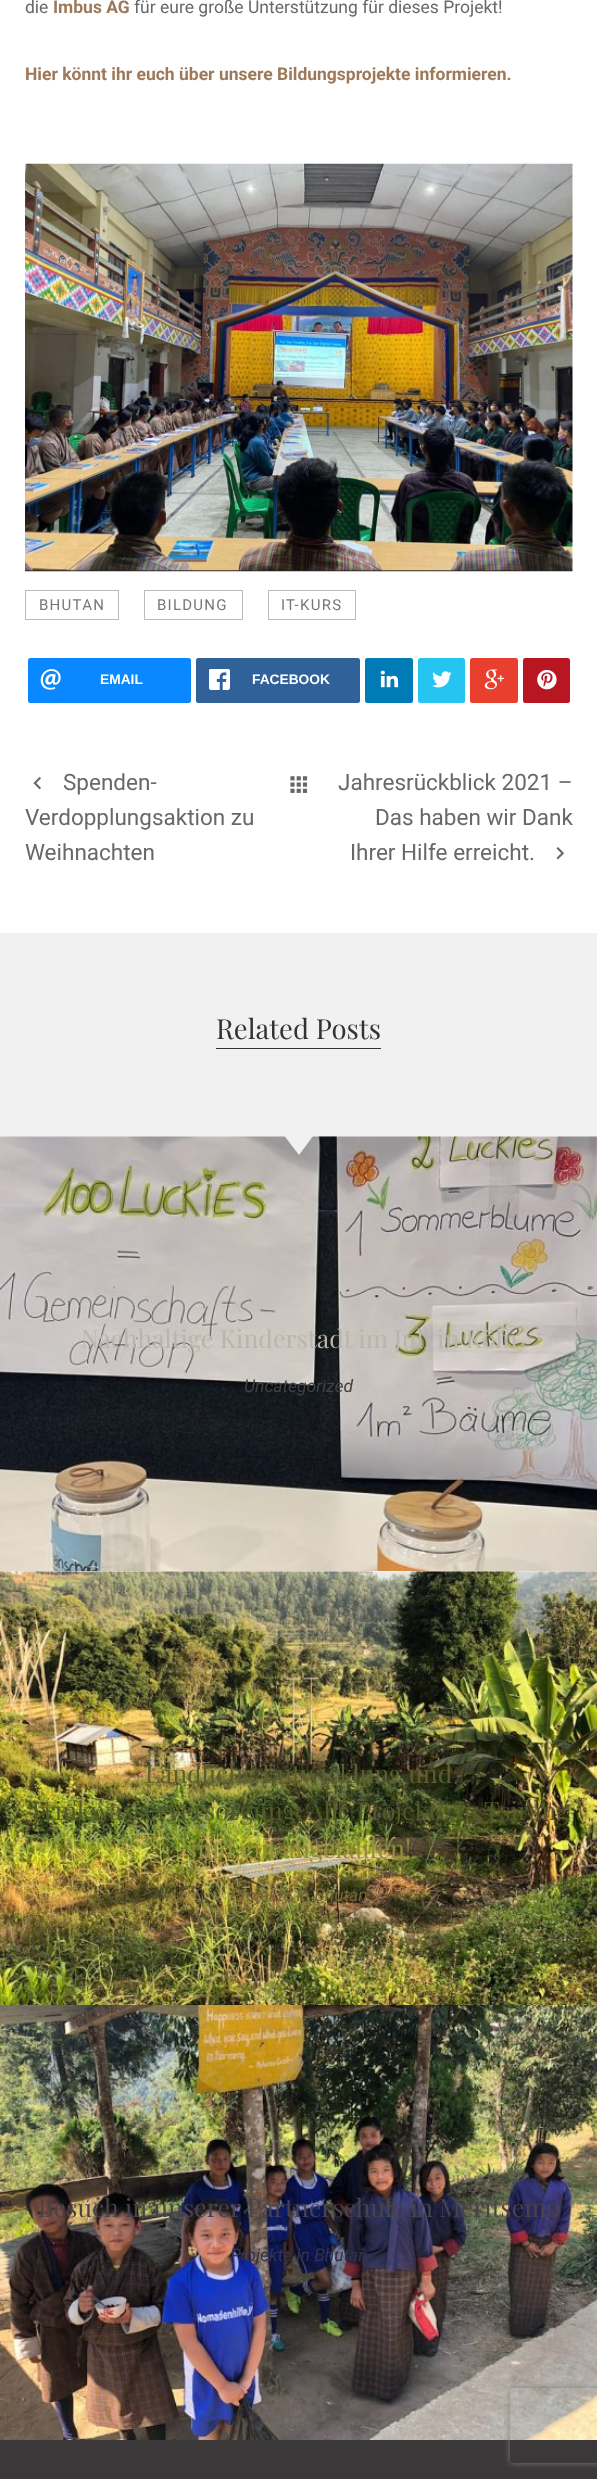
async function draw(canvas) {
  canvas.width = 597
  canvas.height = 2479
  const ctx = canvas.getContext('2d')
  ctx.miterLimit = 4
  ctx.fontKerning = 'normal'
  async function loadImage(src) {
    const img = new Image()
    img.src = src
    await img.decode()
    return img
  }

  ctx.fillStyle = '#fff'
  ctx.fillRect(0, 0, 597, 2479)
  ctx.font = '17.5px Roboto'
  ctx.fillStyle = '#686868'
  ctx.fillText('die', 25, 13)
  ctx.font = 'bold 17.5px Roboto'
  ctx.fillStyle = '#9d795a'
  ctx.fillText('Imbus AG', 53, 13)
  ctx.font = '17.5px Roboto'
  ctx.fillStyle = '#686868'
  ctx.fillText('für eure große Unterstützung für dieses Projekt!', 134, 13)
  ctx.font = 'bold 17.5px Roboto'
  ctx.fillStyle = '#9d795a'
  ctx.fillText('Hier könnt ihr euch über unsere Bildungsprojekte informieren.', 25, 80)
  ctx.drawImage(await loadImage('image0.png'), 25, 163, 548, 409)
  ctx.strokeStyle = '#bbb'
  ctx.strokeRect(25.5, 590.5, 93, 29)
  ctx.letterSpacing = '1.25px'
  ctx.font = '15px Roboto'
  ctx.fillStyle = '#777'
  ctx.fillText('BHUTAN', 39, 610)
  ctx.strokeRect(144.5, 590.5, 98, 29)
  ctx.fillText('BILDUNG', 157, 610)
  ctx.strokeRect(268.5, 590.5, 87, 29)
  ctx.fillText('IT-KURS', 281, 610)
  ctx.fillStyle = '#0a88ff'
  ctx.beginPath()
  ctx.roundRect(28, 658, 163, 45, 2.5)
  ctx.fill()
  ctx.drawImage(await loadImage('image1.png'), 40, 669, 21, 21)
  ctx.letterSpacing = '0px'
  ctx.font = 'bold 13.75px Liberation Sans'
  ctx.fillStyle = '#fff'
  ctx.fillText('EMAIL', 100, 684)
  ctx.fillStyle = '#306199'
  ctx.beginPath()
  ctx.roundRect(196, 658, 164, 45, 2.5)
  ctx.fill()
  ctx.drawImage(await loadImage('image2.png'), 209, 669, 21, 21)
  ctx.fillStyle = '#fff'
  ctx.fillText('FACEBOOK', 252, 684)
  ctx.fillStyle = '#007bb6'
  ctx.beginPath()
  ctx.roundRect(365, 658, 48, 45, 2.5)
  ctx.fill()
  ctx.drawImage(await loadImage('image3.png'), 380, 670, 19, 18)
  ctx.fillStyle = '#26c4f1'
  ctx.beginPath()
  ctx.roundRect(418, 658, 47, 45, 2.5)
  ctx.fill()
  ctx.drawImage(await loadImage('image4.png'), 432, 671, 20, 17)
  ctx.fillStyle = '#e93f2e'
  ctx.beginPath()
  ctx.roundRect(470, 658, 48, 45, 2.5)
  ctx.fill()
  ctx.drawImage(await loadImage('image5.png'), 484, 669, 20, 21)
  ctx.fillStyle = '#b81621'
  ctx.beginPath()
  ctx.roundRect(523, 658, 47, 45, 2.5)
  ctx.fill()
  ctx.drawImage(await loadImage('image6.png'), 537, 669, 20, 21)
  ctx.drawImage(await loadImage('image7.png'), 33, 776, 8, 14)
  ctx.font = '22.5px Roboto'
  ctx.fillStyle = '#686868'
  ctx.fillText('Spenden-', 63, 790)
  ctx.fillText('Verdopplungsaktion zu', 25, 825)
  ctx.fillText('Weihnachten', 25, 860)
  ctx.drawImage(await loadImage('image8.png'), 290, 776, 18, 17)
  ctx.fillText('Jahresrückblick 2021 –', 338, 790)
  ctx.fillText('Das haben wir Dank', 375, 825)
  ctx.fillText('Ihrer Hilfe erreicht.', 350, 860)
  ctx.drawImage(await loadImage('image9.png'), 556, 847, 9, 13)
  ctx.fillStyle = '#f1f1f1'
  ctx.fillRect(0, 933, 597, 203)
  ctx.fillStyle = '#333'
  ctx.fillRect(216, 1048, 165, 1)
  ctx.font = '27.5px Playfair Display'
  ctx.fillText('Related Posts', 216, 1039)
  ctx.drawImage(await loadImage('image10.png'), 0, 1136, 597, 436)
  ctx.fillStyle = '#f1f1f1'
  ctx.beginPath()
  ctx.moveTo(280, 1130)
  ctx.lineTo(317.5, 1130)
  ctx.lineTo(299, 1155)
  ctx.closePath()
  ctx.fill()
  ctx.font = '25px Playfair Display'
  ctx.fillStyle = '#b9b4ac'
  ctx.fillText('Nachhaltige Kinderstadt im Juli in Köln', 81, 1348)
  ctx.font = 'italic 17.5px Roboto'
  ctx.fillStyle = '#3f4143'
  ctx.fillText('Uncategorized', 244, 1392)
  ctx.drawImage(await loadImage('image11.png'), 0, 1571, 597, 434)
  ctx.font = '25px Playfair Display'
  ctx.fillStyle = '#5e5d2e'
  ctx.fillText('Ländliche Entwicklung und', 145, 1783)
  ctx.fillStyle = '#535a26'
  ctx.fillText('Trinkwasserversorgung: Alle Projekte in Tsirang', 28, 1820)
  ctx.fillStyle = '#928d40'
  ctx.fillText('sind gut angelaufen!', 186, 1858)
  ctx.font = 'italic 17.5px Roboto'
  ctx.fillStyle = '#726534'
  ctx.fillText('Projekte in Bhutan', 230, 1901)
  ctx.drawImage(await loadImage('image12.png'), 0, 2005, 597, 435)
  ctx.font = '25px Playfair Display'
  ctx.fillStyle = '#48434b'
  ctx.fillText('Besuch in unserer Partnerschule in Meritsemo', 38, 2217)
  ctx.font = 'italic 17.5px Roboto'
  ctx.fillStyle = '#33324d'
  ctx.fillText('Projekte in Bhutan', 230, 2261)
  ctx.fillStyle = '#3a3838'
  ctx.fillRect(0, 2440, 597, 39)
  ctx.save()
  ctx.beginPath()
  ctx.moveTo(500, 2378)
  ctx.lineTo(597, 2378)
  ctx.lineTo(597, 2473)
  ctx.lineTo(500, 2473)
  ctx.closePath()
  ctx.moveTo(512.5, 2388)
  ctx.lineTo(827.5, 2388)
  ctx.bezierCurveTo(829, 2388, 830, 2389, 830, 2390.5)
  ctx.lineTo(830, 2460.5)
  ctx.bezierCurveTo(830, 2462, 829, 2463, 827.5, 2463)
  ctx.lineTo(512.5, 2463)
  ctx.bezierCurveTo(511, 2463, 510, 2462, 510, 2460.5)
  ctx.lineTo(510, 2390.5)
  ctx.bezierCurveTo(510, 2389, 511, 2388, 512.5, 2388)
  ctx.closePath()
  ctx.clip('evenodd')
  ctx.fillStyle = '#808080'
  ctx.filter = 'blur(3px)'
  ctx.beginPath()
  ctx.roundRect(510, 2388, 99, 75, 2.5)
  ctx.fill()
  ctx.filter = 'none'
  ctx.restore()
}

draw(document.querySelector('canvas'))
